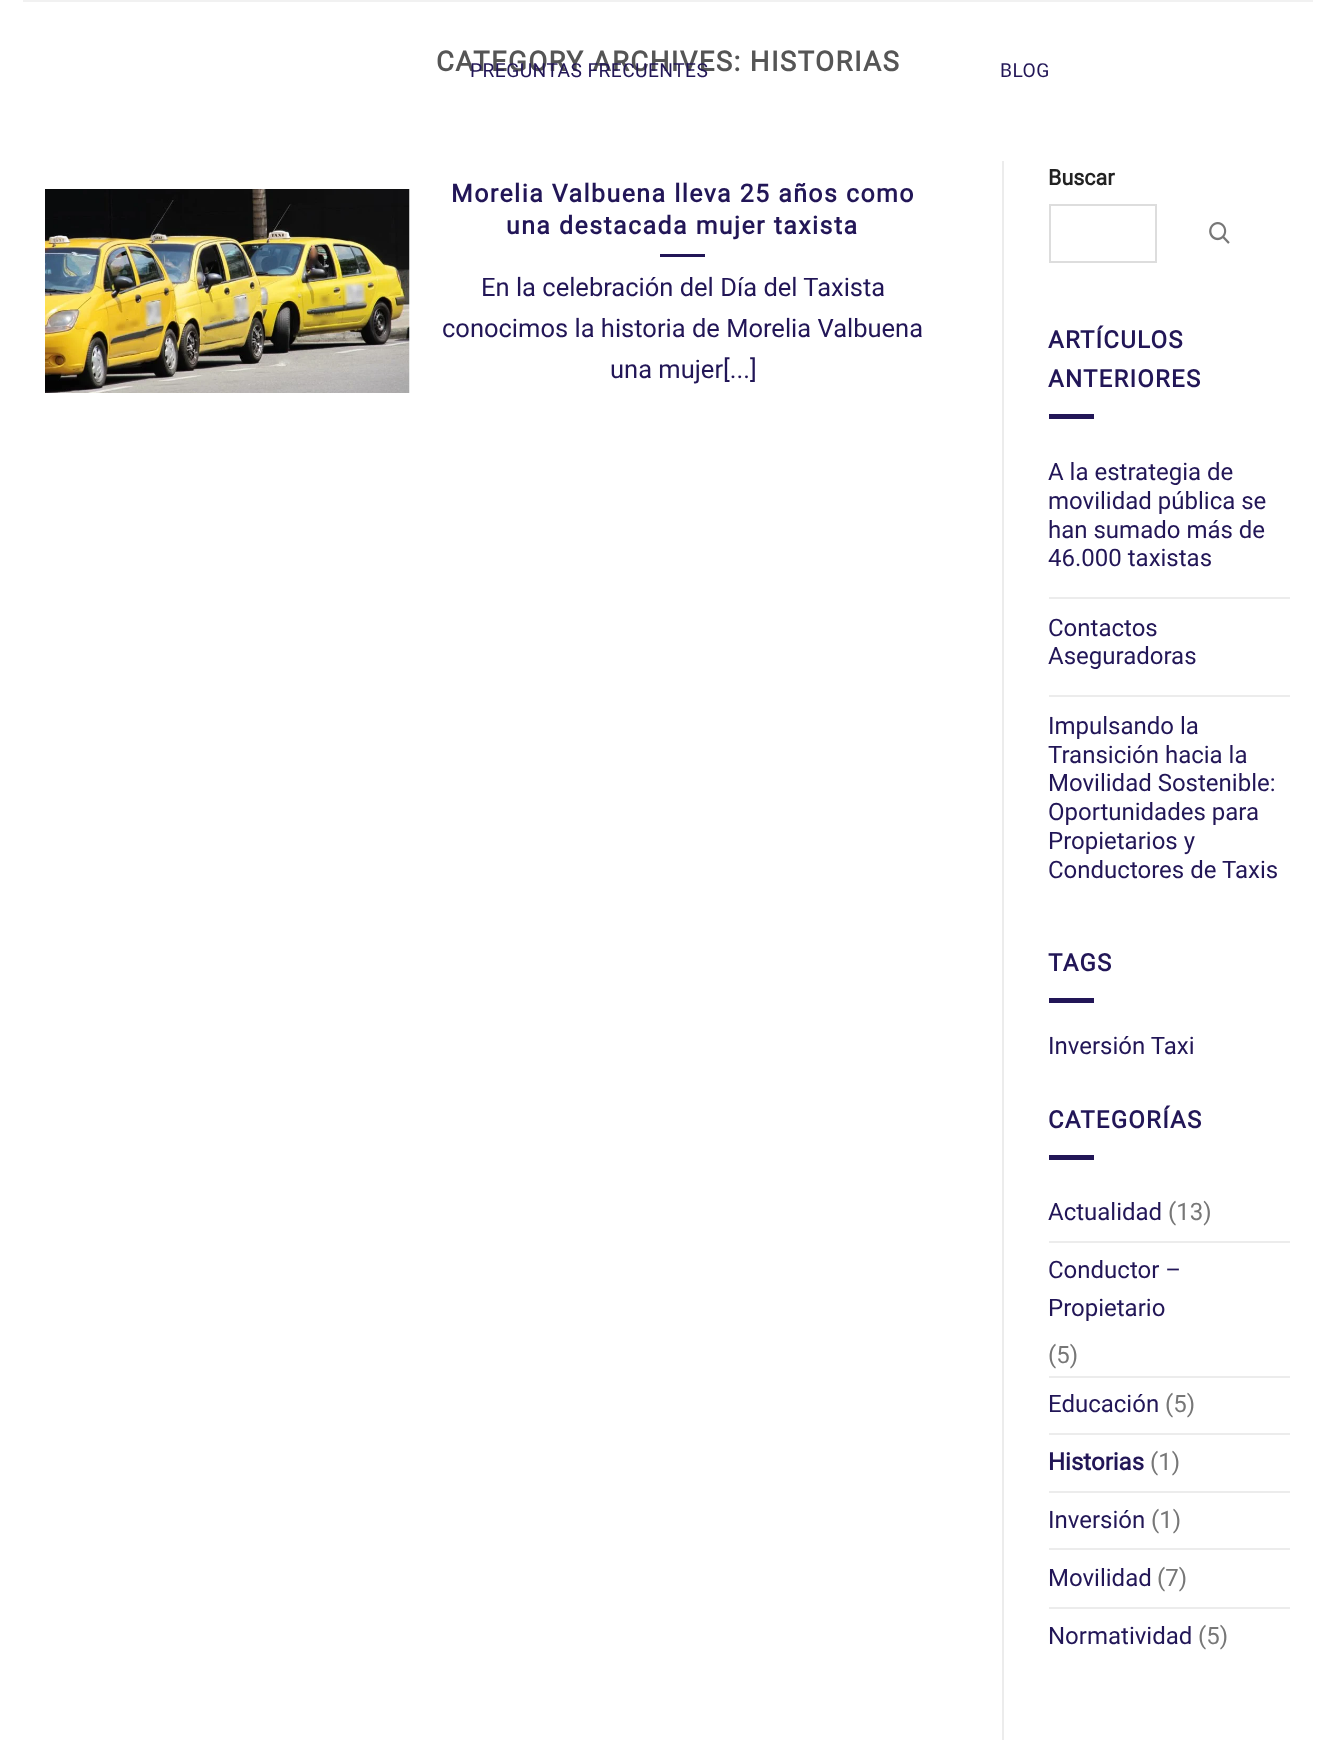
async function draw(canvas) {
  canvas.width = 1334
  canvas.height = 1740
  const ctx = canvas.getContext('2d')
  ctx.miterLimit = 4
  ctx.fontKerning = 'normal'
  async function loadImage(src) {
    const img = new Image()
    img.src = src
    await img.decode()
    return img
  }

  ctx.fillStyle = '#fff'
  ctx.fillRect(0, 0, 1334, 1740)
  ctx.letterSpacing = '1.4px'
  ctx.font = 'bold 27.6px Roboto'
  ctx.fillStyle = '#555'
  ctx.fillText('CATEGORY ARCHIVES: HISTORIAS', 436, 71)
  ctx.drawImage(await loadImage('image0.png'), 45, 189, 365, 204)
  ctx.letterSpacing = '1.5px'
  ctx.font = 'bold 24.8px Roboto'
  ctx.fillStyle = '#221657'
  ctx.fillText('Morelia Valbuena lleva 25 años como', 451, 202)
  ctx.fillText('una destacada mujer taxista', 506, 234)
  ctx.fillRect(660, 254, 45, 3)
  ctx.letterSpacing = '0px'
  ctx.font = '25.5px Roboto'
  ctx.fillText('En la celebración del Día del Taxista', 481, 296)
  ctx.fillText('conocimos la historia de Morelia Valbuena', 442, 337)
  ctx.fillText('una mujer[...]', 610, 378)
  ctx.fillStyle = '#ececec'
  ctx.fillRect(1002, 161, 2, 1579)
  ctx.font = 'bold 21.5px Roboto'
  ctx.fillStyle = '#222'
  ctx.fillText('Buscar', 1048, 185)
  ctx.strokeStyle = '#ddd'
  ctx.lineWidth = 2
  ctx.strokeRect(1050, 205, 106, 57)
  ctx.drawImage(await loadImage('image1.png'), 1209, 222, 21, 22)
  ctx.letterSpacing = '1.25px'
  ctx.font = 'bold 24px Roboto'
  ctx.fillStyle = '#221657'
  ctx.fillText('ARTÍCULOS', 1048, 348)
  ctx.fillText('ANTERIORES', 1048, 387)
  ctx.fillRect(1049, 414, 45, 5)
  ctx.letterSpacing = '0px'
  ctx.font = '24px Roboto'
  ctx.fillText('A la estrategia de', 1048, 480)
  ctx.fillText('movilidad pública se', 1048, 509)
  ctx.fillText('han sumado más de', 1048, 538)
  ctx.fillText('46.000 taxistas', 1048, 566)
  ctx.fillStyle = '#ececec'
  ctx.fillRect(1049, 597, 241, 2)
  ctx.fillStyle = '#221657'
  ctx.fillText('Contactos', 1048, 636)
  ctx.fillText('Aseguradoras', 1048, 664)
  ctx.fillStyle = '#ececec'
  ctx.fillRect(1049, 695, 241, 2)
  ctx.fillStyle = '#221657'
  ctx.fillText('Impulsando la', 1048, 734)
  ctx.fillText('Transición hacia la', 1048, 763)
  ctx.fillText('Movilidad Sostenible:', 1048, 791)
  ctx.fillText('Oportunidades para', 1048, 820)
  ctx.fillText('Propietarios y', 1048, 849)
  ctx.fillText('Conductores de Taxis', 1048, 878)
  ctx.letterSpacing = '1.25px'
  ctx.font = 'bold 24px Roboto'
  ctx.fillText('TAGS', 1048, 971)
  ctx.fillRect(1049, 998, 45, 5)
  ctx.letterSpacing = '0px'
  ctx.font = '24px Roboto'
  ctx.fillText('Inversión Taxi', 1048, 1054)
  ctx.letterSpacing = '1.25px'
  ctx.font = 'bold 24px Roboto'
  ctx.fillText('CATEGORÍAS', 1048, 1128)
  ctx.fillRect(1049, 1155, 45, 5)
  ctx.letterSpacing = '0px'
  ctx.font = '24px Roboto'
  ctx.fillText('Actualidad', 1048, 1220)
  ctx.fillStyle = '#777'
  ctx.fillText('(13)', 1168, 1220)
  ctx.fillStyle = '#ececec'
  ctx.fillRect(1049, 1241, 241, 2)
  ctx.fillStyle = '#221657'
  ctx.fillText('Conductor –', 1048, 1278)
  ctx.fillText('Propietario', 1048, 1316)
  ctx.fillStyle = '#777'
  ctx.fillText('(5)', 1048, 1363)
  ctx.fillStyle = '#ececec'
  ctx.fillRect(1049, 1376, 241, 2)
  ctx.fillStyle = '#221657'
  ctx.fillText('Educación', 1048, 1412)
  ctx.fillStyle = '#777'
  ctx.fillText('(5)', 1165, 1412)
  ctx.fillStyle = '#ececec'
  ctx.fillRect(1049, 1433, 241, 2)
  ctx.font = 'bold 24px Roboto'
  ctx.fillStyle = '#221657'
  ctx.fillText('Historias', 1048, 1470)
  ctx.font = '24px Roboto'
  ctx.fillStyle = '#777'
  ctx.fillText('(1)', 1150, 1470)
  ctx.fillStyle = '#ececec'
  ctx.fillRect(1049, 1491, 241, 2)
  ctx.fillStyle = '#221657'
  ctx.fillText('Inversión', 1048, 1528)
  ctx.fillStyle = '#777'
  ctx.fillText('(1)', 1151, 1528)
  ctx.fillStyle = '#ececec'
  ctx.fillRect(1049, 1548, 241, 2)
  ctx.fillStyle = '#221657'
  ctx.fillText('Movilidad', 1048, 1586)
  ctx.fillStyle = '#777'
  ctx.fillText('(7)', 1157, 1586)
  ctx.fillStyle = '#ececec'
  ctx.fillRect(1049, 1607, 241, 2)
  ctx.fillStyle = '#221657'
  ctx.fillText('Normatividad', 1048, 1644)
  ctx.fillStyle = '#777'
  ctx.fillText('(5)', 1198, 1644)
  ctx.fillStyle = '#f1f1f1'
  ctx.fillRect(23, 0, 1290, 2)
  ctx.letterSpacing = '0.4px'
  ctx.font = '19.25px Roboto'
  ctx.fillStyle = '#221657'
  ctx.fillText('PREGUNTAS FRECUENTES', 470, 77)
  ctx.fillText('BLOG', 1000, 77)
}

draw(document.querySelector('canvas'))
